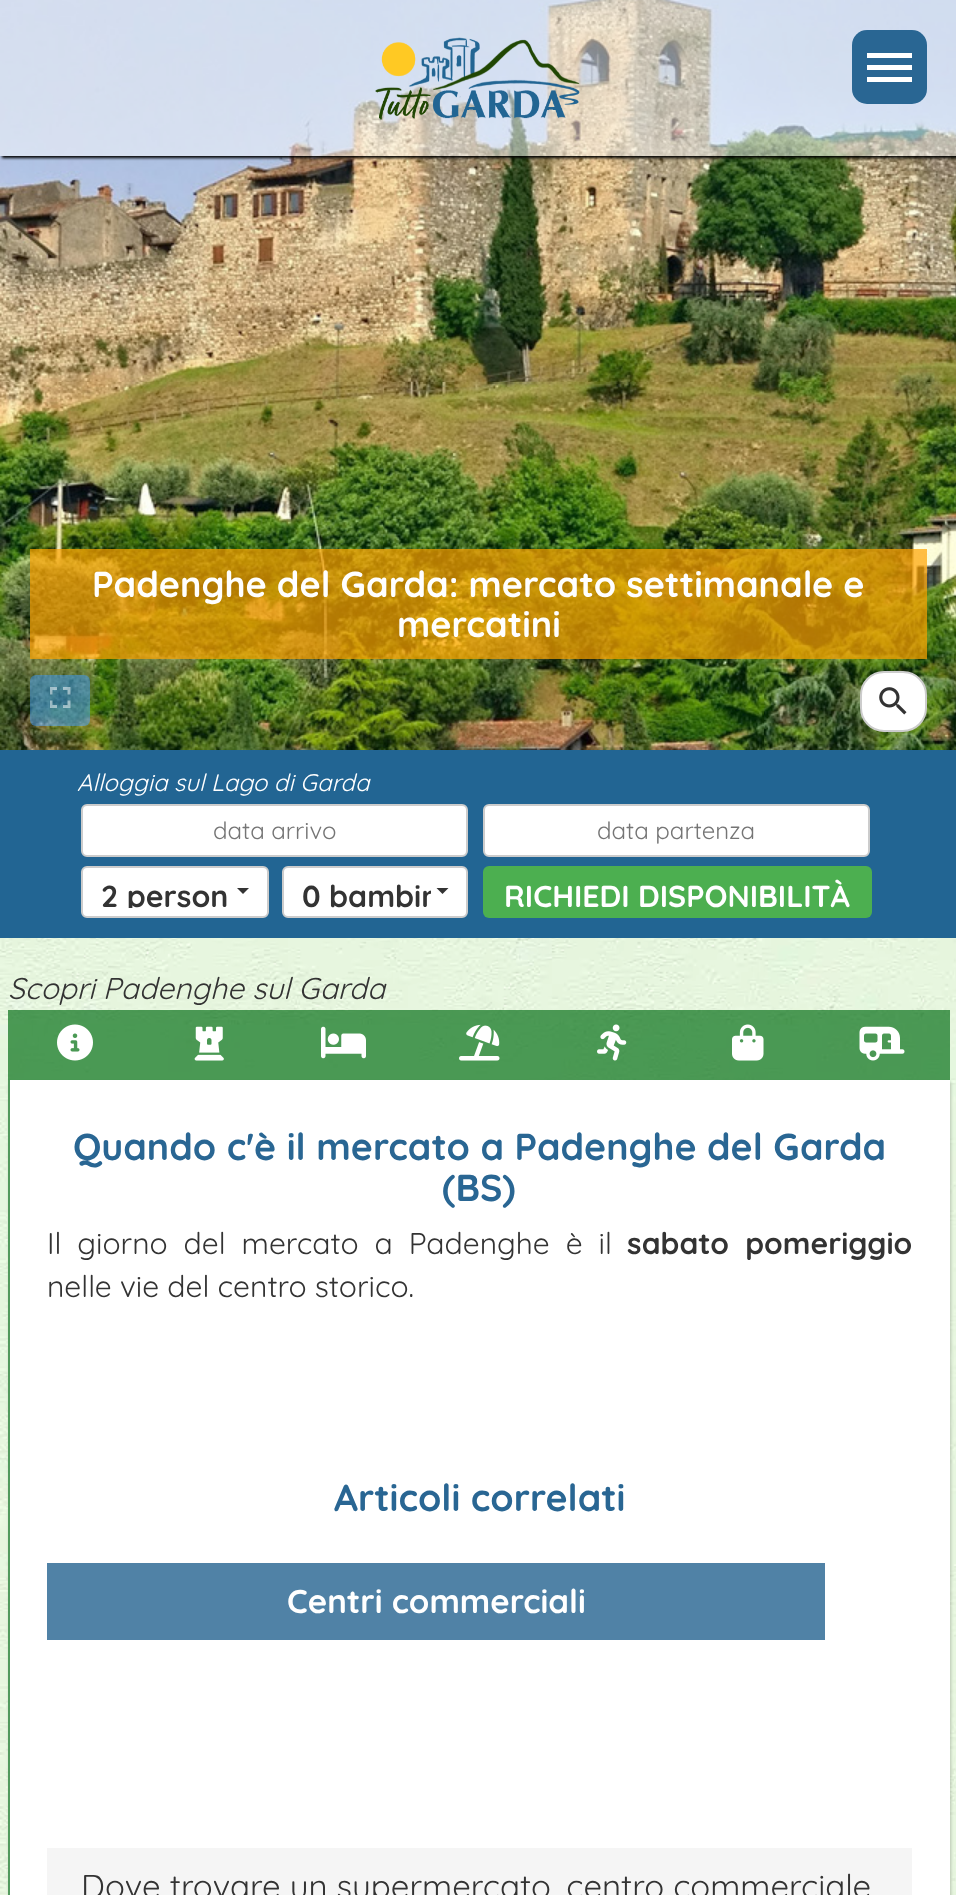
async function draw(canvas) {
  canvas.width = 956
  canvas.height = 1895
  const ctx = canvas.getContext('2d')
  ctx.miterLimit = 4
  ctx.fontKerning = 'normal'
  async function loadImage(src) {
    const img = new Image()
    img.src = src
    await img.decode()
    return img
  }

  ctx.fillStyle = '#fff'
  ctx.fillRect(0, 0, 956, 1895)
  ctx.drawImage(await loadImage('image0.png'), 0, 938, 956, 957)
  ctx.drawImage(await loadImage('image1.png'), 0, 0, 956, 750)
  ctx.save()
  ctx.beginPath()
  ctx.rect(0, 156, 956, 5)
  ctx.clip()
  ctx.fillStyle = '#000'
  ctx.filter = 'blur(1.5px)'
  ctx.beginPath()
  ctx.rect(2, 2, 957, 156)
  ctx.fill()
  ctx.filter = 'none'
  ctx.restore()
  ctx.fillStyle = '#ffffff80'
  ctx.fillRect(0, 0, 956, 156)
  ctx.drawImage(await loadImage('image2.png'), 375, 37, 205, 83)
  ctx.fillStyle = '#296693'
  ctx.beginPath()
  ctx.roundRect(852, 30, 75, 74, 15)
  ctx.fill()
  ctx.fillStyle = '#fff'
  ctx.fillRect(867, 53, 45, 5)
  ctx.fillRect(867, 65, 45, 5)
  ctx.fillRect(867, 77, 45, 5)
  ctx.fillStyle = '#ffa200b3'
  ctx.fillRect(30, 549, 897, 110)
  ctx.font = 'bold 36px Quicksand'
  ctx.fillStyle = '#fff'
  ctx.fillText('Padenghe del Garda: mercato settimanale e', 92, 597)
  ctx.fillText('mercatini', 397, 637)
  ctx.fillStyle = '#3f9dff80'
  ctx.beginPath()
  ctx.roundRect(30, 675, 60, 51, 6)
  ctx.fill()
  ctx.drawImage(await loadImage('image3.png'), 50, 687, 21, 21)
  ctx.fillStyle = '#fff'
  ctx.beginPath()
  ctx.roundRect(861, 672, 65, 59, 23)
  ctx.fill()
  ctx.strokeStyle = '#ccc'
  ctx.lineWidth = 2
  ctx.stroke()
  ctx.drawImage(await loadImage('image4.png'), 879, 687, 28, 28)
  ctx.fillStyle = '#226593'
  ctx.fillRect(0, 750, 956, 188)
  ctx.font = 'italic 24px Quicksand'
  ctx.fillStyle = '#fff'
  ctx.fillText('Alloggia sul Lago di Garda', 77, 791)
  ctx.beginPath()
  ctx.roundRect(82, 805, 385, 51, 5)
  ctx.fill()
  ctx.stroke()
  ctx.font = '24px Quicksand'
  ctx.fillStyle = '#757575'
  ctx.fillText('data arrivo', 213, 839)
  ctx.fillStyle = '#fff'
  ctx.beginPath()
  ctx.roundRect(484, 805, 385, 51, 5)
  ctx.fill()
  ctx.stroke()
  ctx.fillStyle = '#757575'
  ctx.fillText('data partenza', 597, 839)
  ctx.fillStyle = '#fff'
  ctx.beginPath()
  ctx.roundRect(82, 867, 186, 50, 5)
  ctx.fill()
  ctx.stroke()
  ctx.save()
  ctx.beginPath()
  ctx.rect(101, 876, 130, 32)
  ctx.clip()
  ctx.font = 'bold 30.3px Quicksand'
  ctx.fillStyle = '#333'
  ctx.fillText('2 person', 101, 907)
  ctx.restore()
  ctx.fillStyle = '#333'
  ctx.beginPath()
  ctx.moveTo(237, 888)
  ctx.lineTo(249, 888)
  ctx.lineTo(243, 894)
  ctx.closePath()
  ctx.fill()
  ctx.fillStyle = '#fff'
  ctx.beginPath()
  ctx.roundRect(283, 867, 184, 50, 5)
  ctx.fill()
  ctx.stroke()
  ctx.save()
  ctx.beginPath()
  ctx.rect(302, 876, 129, 32)
  ctx.clip()
  ctx.font = 'bold 30.3px Quicksand'
  ctx.fillStyle = '#333'
  ctx.fillText('0 bambin', 302, 907)
  ctx.restore()
  ctx.fillStyle = '#333'
  ctx.beginPath()
  ctx.moveTo(436.5, 888)
  ctx.lineTo(448.5, 888)
  ctx.lineTo(442.5, 894)
  ctx.closePath()
  ctx.fill()
  ctx.fillStyle = '#4caf50'
  ctx.beginPath()
  ctx.roundRect(483, 866, 389, 52, 6)
  ctx.fill()
  ctx.font = 'bold 30.3px Quicksand'
  ctx.fillStyle = '#fff'
  ctx.fillText('RICHIEDI DISPONIBILITÀ', 504, 907)
  ctx.font = 'italic 30px Quicksand'
  ctx.fillStyle = '#333'
  ctx.fillText('Scopri Padenghe sul Garda', 8, 999)
  ctx.fillStyle = '#00000033'
  ctx.filter = 'blur(1.5px)'
  ctx.beginPath()
  ctx.rect(9, 1082, 942, 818)
  ctx.fill()
  ctx.filter = 'none'
  ctx.fillStyle = '#006b11ad'
  ctx.fillRect(8, 1010, 135, 70)
  ctx.drawImage(await loadImage('image5.png'), 57, 1024, 36, 37)
  ctx.fillRect(143, 1010, 133, 70)
  ctx.drawImage(await loadImage('image6.png'), 194, 1026, 30, 35)
  ctx.fillRect(276, 1010, 135, 70)
  ctx.drawImage(await loadImage('image7.png'), 321, 1026, 45, 33)
  ctx.fillRect(411, 1010, 135, 70)
  ctx.drawImage(await loadImage('image8.png'), 459, 1024, 41, 37)
  ctx.fillRect(546, 1010, 135, 70)
  ctx.drawImage(await loadImage('image9.png'), 597, 1024, 30, 37)
  ctx.fillRect(681, 1010, 134, 70)
  ctx.drawImage(await loadImage('image10.png'), 732, 1024, 32, 37)
  ctx.fillRect(815, 1010, 135, 70)
  ctx.drawImage(await loadImage('image11.png'), 859, 1026, 46, 35)
  ctx.fillStyle = '#fff'
  ctx.fillRect(10, 1080, 940, 815)
  ctx.fillStyle = '#529a5d'
  ctx.fillRect(8, 1080, 2, 815)
  ctx.font = 'bold 37.5px Quicksand'
  ctx.fillStyle = '#296693'
  ctx.fillText('Quando c\'è il mercato a Padenghe del Garda', 73, 1160)
  ctx.fillText('(BS)', 442, 1201)
  ctx.wordSpacing = '7.75px'
  ctx.font = '30px Quicksand'
  ctx.fillStyle = '#333'
  ctx.fillText('Il giorno del mercato a Padenghe è il', 47, 1254)
  ctx.font = 'bold 30px Quicksand'
  ctx.fillText('sabato pomeriggio', 627, 1254)
  ctx.wordSpacing = '0px'
  ctx.font = '30px Quicksand'
  ctx.fillText('nelle vie del centro storico.', 47, 1297)
  ctx.font = 'bold 37.5px Quicksand'
  ctx.fillStyle = '#296693'
  ctx.fillText('Articoli correlati', 334, 1511)
  ctx.fillStyle = '#5082a6'
  ctx.fillRect(47, 1563, 778, 77)
  ctx.font = 'bold 33px Quicksand'
  ctx.fillStyle = '#fff'
  ctx.fillText('Centri commerciali', 287, 1613)
  ctx.fillStyle = '#f5f5f5'
  ctx.fillRect(47, 1848, 865, 47)
  ctx.font = '33px Quicksand'
  ctx.fillStyle = '#333'
  ctx.fillText('Dove trovare un supermercato, centro commerciale', 81, 1898)
}

draw(document.querySelector('canvas'))
